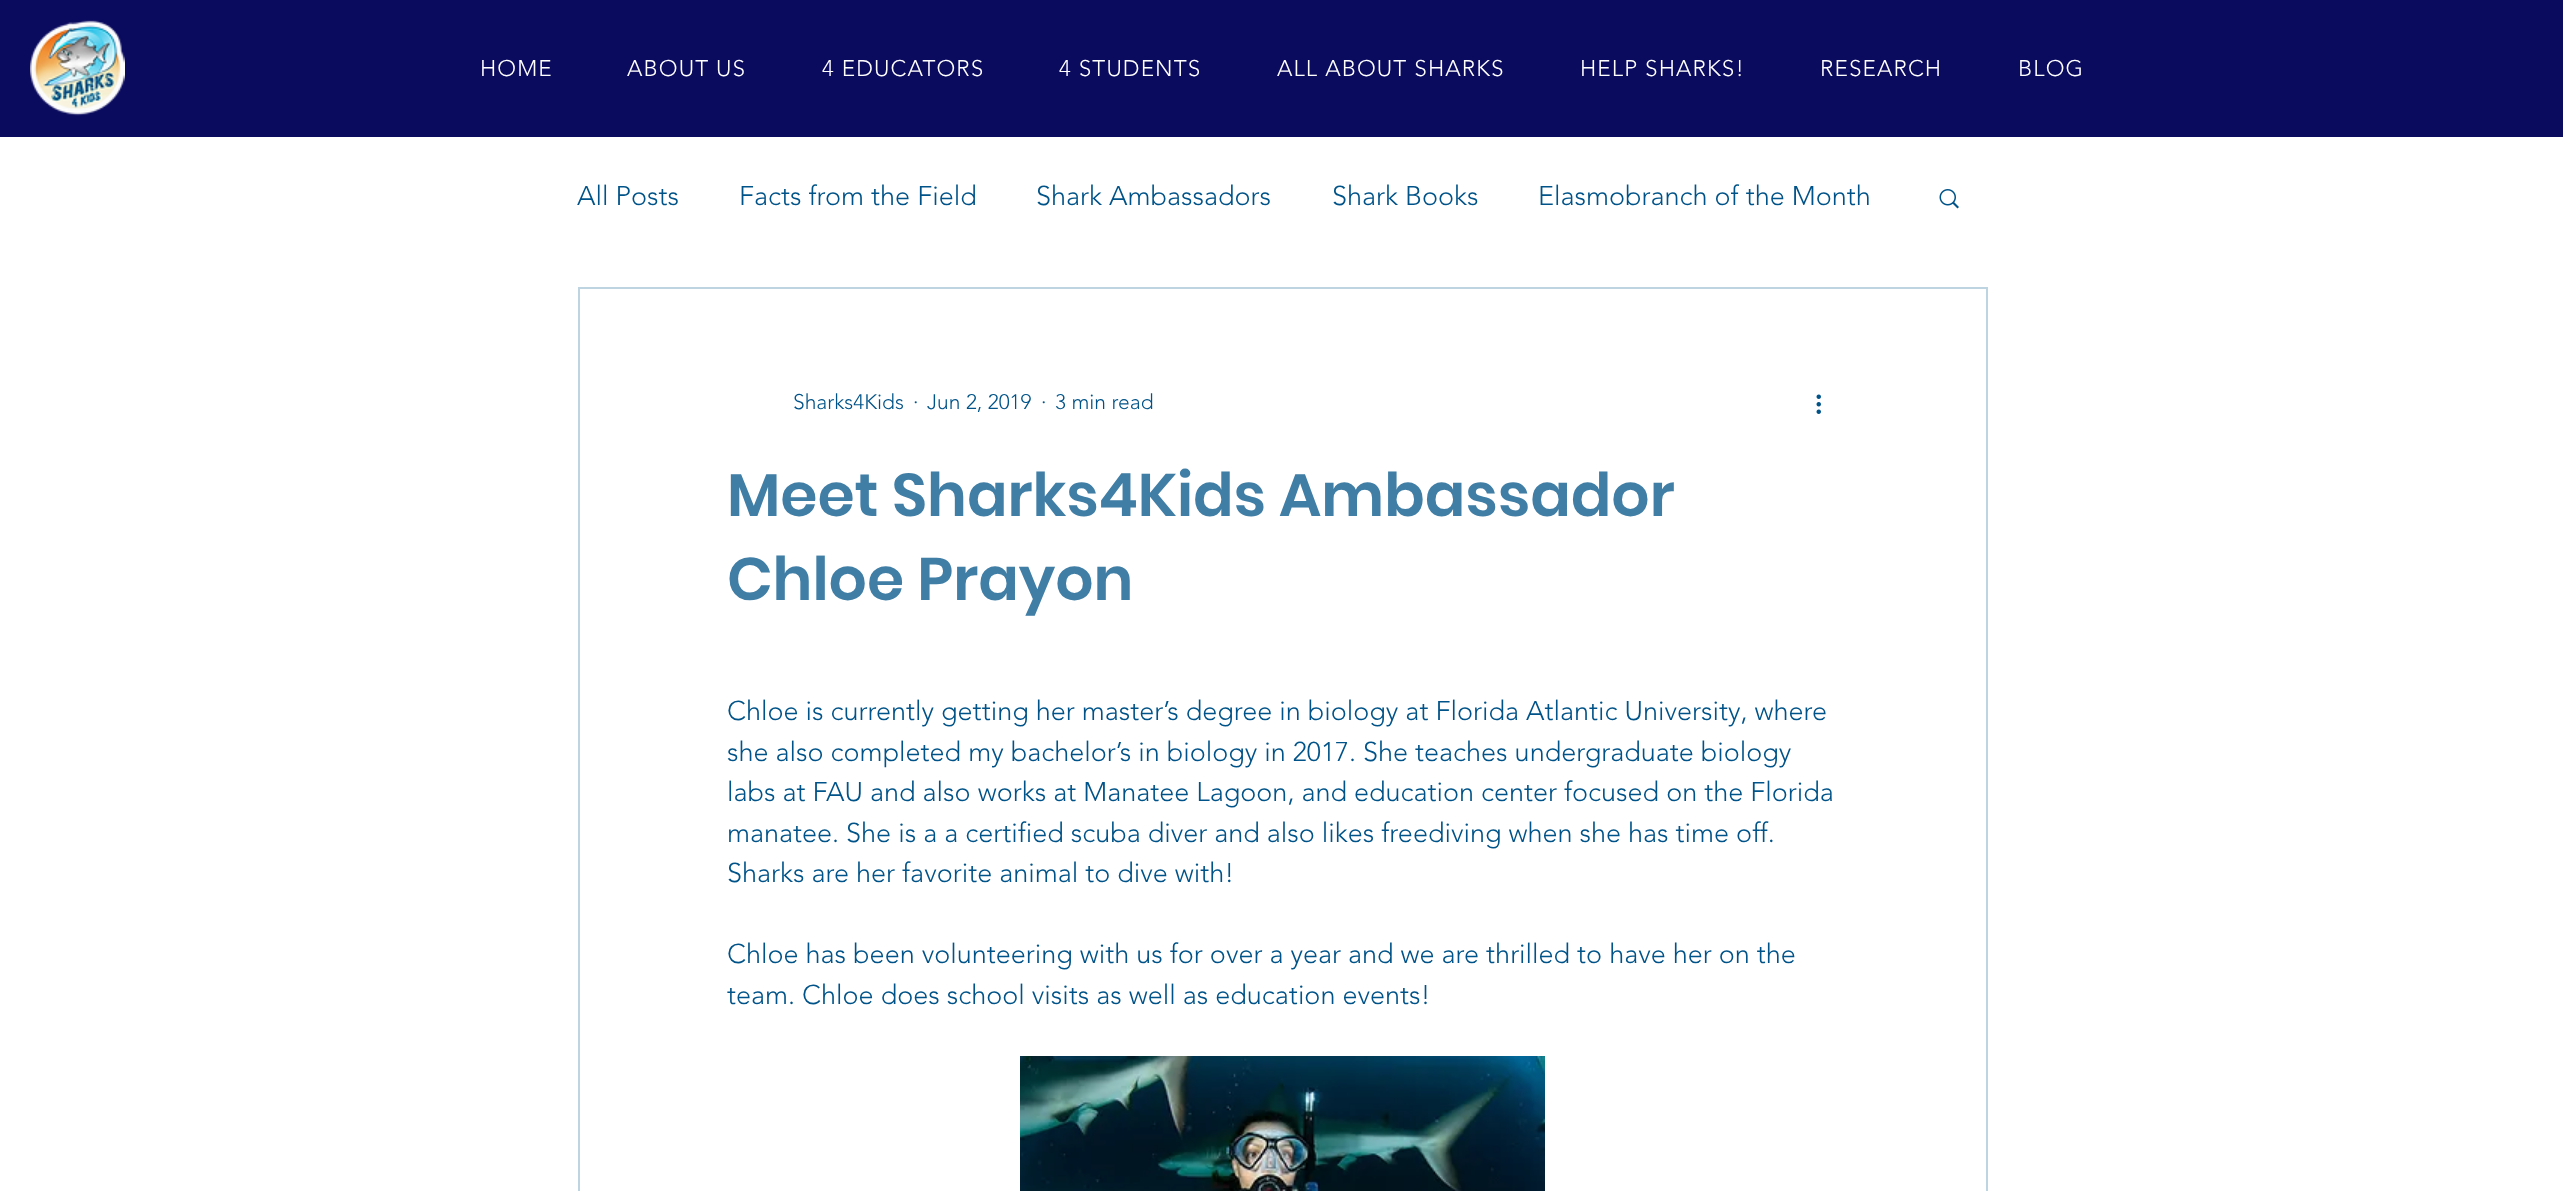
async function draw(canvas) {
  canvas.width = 2563
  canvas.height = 1191
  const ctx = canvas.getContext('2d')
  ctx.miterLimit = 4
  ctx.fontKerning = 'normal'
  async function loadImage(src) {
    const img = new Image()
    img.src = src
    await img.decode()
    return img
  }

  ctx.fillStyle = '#fff'
  ctx.fillRect(0, 0, 2563, 1191)
  ctx.fillStyle = '#0a0a5e'
  ctx.fillRect(0, 0, 2563, 137)
  ctx.drawImage(await loadImage('image0.png'), 30, 20, 95, 96)
  ctx.letterSpacing = '1.1px'
  ctx.font = '300 22.5px "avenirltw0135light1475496"'
  ctx.fillStyle = '#fff'
  ctx.fillText('HOME', 480, 76)
  ctx.fillText('ABOUT US', 627, 76)
  ctx.fillText('4 EDUCATORS', 822, 76)
  ctx.fillText('4 STUDENTS', 1059, 76)
  ctx.fillText('ALL ABOUT SHARKS', 1277, 76)
  ctx.fillText('HELP SHARKS!', 1580, 76)
  ctx.fillText('RESEARCH', 1820, 76)
  ctx.fillText('BLOG', 2018, 76)
  ctx.letterSpacing = '0px'
  ctx.font = '300 27px "avenirltw0135light1475496"'
  ctx.fillStyle = '#005388'
  ctx.fillText('All Posts', 577, 205)
  ctx.fillText('Facts from the Field', 739, 205)
  ctx.fillText('Shark Ambassadors', 1036, 205)
  ctx.fillText('Shark Books', 1332, 205)
  ctx.fillText('Elasmobranch of the Month', 1538, 205)
  ctx.drawImage(await loadImage('image1.png'), 1939, 189, 20, 20)
  ctx.strokeStyle = '#bfd4e1'
  ctx.lineWidth = 2
  ctx.strokeRect(579, 288, 1408, 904)
  ctx.font = '300 21px "avenirltw0135light1475496"'
  ctx.fillText('Sharks4Kids', 793, 409)
  ctx.fillText('·', 913, 409)
  ctx.fillText('Jun 2, 2019', 927, 409)
  ctx.fillText('·', 1041, 409)
  ctx.fillText('3 min read', 1055, 409)
  ctx.drawImage(await loadImage('image2.png'), 1816, 394, 5, 20)
  ctx.font = '600 60px Poppins'
  ctx.fillStyle = '#407ea6'
  ctx.fillText('Meet Sharks4Kids Ambassador', 727, 516)
  ctx.fillText('Chloe Prayon', 727, 600)
  ctx.font = '300 27px "avenirltw0135light1475496"'
  ctx.fillStyle = '#005388'
  ctx.fillText('Chloe is currently getting her master’s degree in biology at Florida Atlantic University, where', 727, 720)
  ctx.fillText('she also completed my bachelor’s in biology in 2017. She teaches undergraduate biology', 727, 761)
  ctx.fillText('labs at FAU and also works at Manatee Lagoon, and education center focused on the Florida', 727, 801)
  ctx.fillText('manatee. She is a a certified scuba diver and also likes freediving when she has time off.', 727, 842)
  ctx.fillText('Sharks are her favorite animal to dive with!', 727, 882)
  ctx.fillText('Chloe has been volunteering with us for over a year and we are thrilled to have her on the', 727, 963)
  ctx.fillText('team. Chloe does school visits as well as education events!', 727, 1004)
  ctx.drawImage(await loadImage('image3.png'), 1020, 1056, 525, 135)
}

draw(document.querySelector('canvas'))
